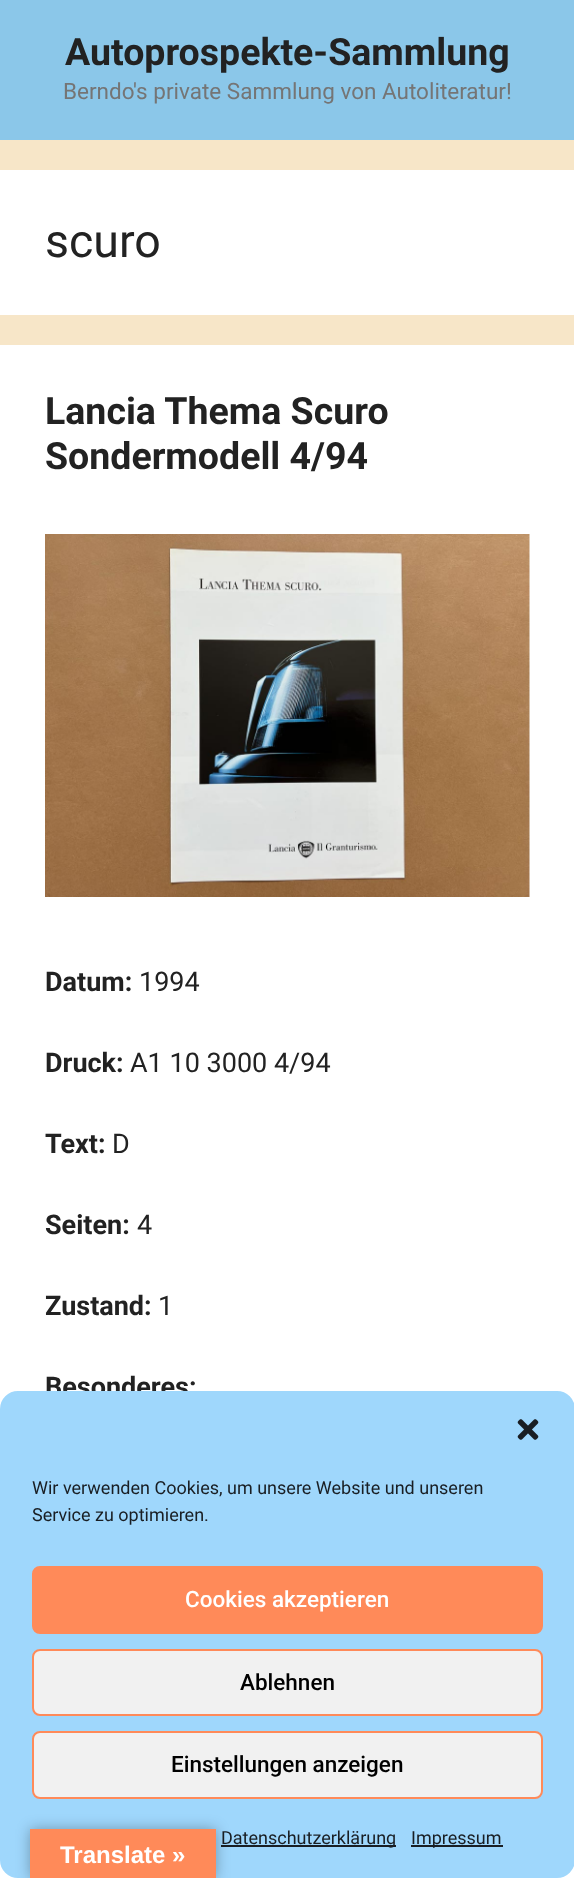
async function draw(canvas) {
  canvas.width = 574
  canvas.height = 1878
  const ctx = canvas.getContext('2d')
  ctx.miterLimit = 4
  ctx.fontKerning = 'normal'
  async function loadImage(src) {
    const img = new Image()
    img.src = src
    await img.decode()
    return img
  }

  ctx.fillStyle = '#f7e6c8'
  ctx.fillRect(0, 0, 574, 1878)
  ctx.fillStyle = '#8bc7e9'
  ctx.fillRect(0, 0, 574, 140)
  ctx.font = 'bold 37.5px Roboto'
  ctx.fillStyle = '#222'
  ctx.fillText('Autoprospekte-Sammlung', 65, 65)
  ctx.font = '22.5px Roboto'
  ctx.fillStyle = '#757575'
  ctx.fillText('Berndo\'s private Sammlung von Autoliteratur!', 63, 99)
  ctx.fillStyle = '#fff'
  ctx.fillRect(0, 170, 574, 145)
  ctx.font = '46.5px Roboto'
  ctx.fillStyle = '#222'
  ctx.fillText('scuro', 45, 257)
  ctx.fillStyle = '#fff'
  ctx.fillRect(0, 345, 574, 1533)
  ctx.font = 'bold 37.5px Roboto'
  ctx.fillStyle = '#222'
  ctx.fillText('Lancia Thema Scuro', 45, 424)
  ctx.fillText('Sondermodell 4/94', 45, 469)
  ctx.drawImage(await loadImage('image0.png'), 45, 534, 485, 363)
  ctx.font = 'bold 27px Roboto'
  ctx.fillText('Datum:', 45, 991)
  ctx.font = '27px Roboto'
  ctx.fillText('1994', 139, 991)
  ctx.font = 'bold 27px Roboto'
  ctx.fillText('Druck:', 45, 1072)
  ctx.font = '27px Roboto'
  ctx.fillText('A1 10 3000 4/94', 130, 1072)
  ctx.font = 'bold 27px Roboto'
  ctx.fillText('Text:', 45, 1153)
  ctx.font = '27px Roboto'
  ctx.fillText('D', 112, 1153)
  ctx.font = 'bold 27px Roboto'
  ctx.fillText('Seiten:', 45, 1234)
  ctx.font = '27px Roboto'
  ctx.fillText('4', 137, 1234)
  ctx.font = 'bold 27px Roboto'
  ctx.fillText('Zustand:', 45, 1315)
  ctx.font = '27px Roboto'
  ctx.fillText('1', 158, 1315)
  ctx.font = 'bold 27px Roboto'
  ctx.fillText('Besonderes:', 45, 1396)
  ctx.fillStyle = '#9fd7fc'
  ctx.beginPath()
  ctx.roundRect(1, 1392, 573, 485, 17)
  ctx.fill()
  ctx.strokeStyle = '#9fd7fc'
  ctx.lineWidth = 2
  ctx.stroke()
  ctx.drawImage(await loadImage('image1.png'), 517, 1419, 22, 21)
  ctx.font = '18px Roboto'
  ctx.fillStyle = '#191e23'
  ctx.fillText('Wir verwenden Cookies, um unsere Website und unseren', 32, 1494)
  ctx.fillText('Service zu optimieren.', 32, 1521)
  ctx.fillStyle = '#ff8a59'
  ctx.beginPath()
  ctx.roundRect(33, 1567, 509, 66, 7)
  ctx.fill()
  ctx.strokeStyle = '#ff8a59'
  ctx.stroke()
  ctx.font = '500 22.5px Roboto'
  ctx.fillStyle = '#fff'
  ctx.fillText('Cookies akzeptieren', 185, 1607)
  ctx.fillStyle = '#f1f1f1'
  ctx.beginPath()
  ctx.roundRect(33, 1650, 509, 65, 7)
  ctx.fill()
  ctx.stroke()
  ctx.fillStyle = '#000'
  ctx.fillText('Ablehnen', 240, 1690)
  ctx.fillStyle = '#f1f1f1'
  ctx.beginPath()
  ctx.roundRect(33, 1732, 509, 66, 7)
  ctx.fill()
  ctx.stroke()
  ctx.fillStyle = '#000'
  ctx.fillText('Einstellungen anzeigen', 171, 1772)
  ctx.fillStyle = '#191e23'
  ctx.fillRect(221, 1845, 175, 2)
  ctx.font = '18px Roboto'
  ctx.fillText('Datenschutzerklärung', 221, 1844)
  ctx.fillRect(411, 1845, 92, 2)
  ctx.fillText('Impressum', 411, 1844)
  ctx.fillStyle = '#0000004d'
  ctx.filter = 'blur(7px)'
  ctx.beginPath()
  ctx.rect(30, 1829, 186, 49)
  ctx.fill()
  ctx.filter = 'none'
  ctx.fillStyle = '#ff8a59'
  ctx.fillRect(30, 1829, 186, 49)
  ctx.font = 'bold 24px Liberation Sans'
  ctx.fillStyle = '#fff'
  ctx.fillText('Translate »', 60, 1863)
}

draw(document.querySelector('canvas'))
